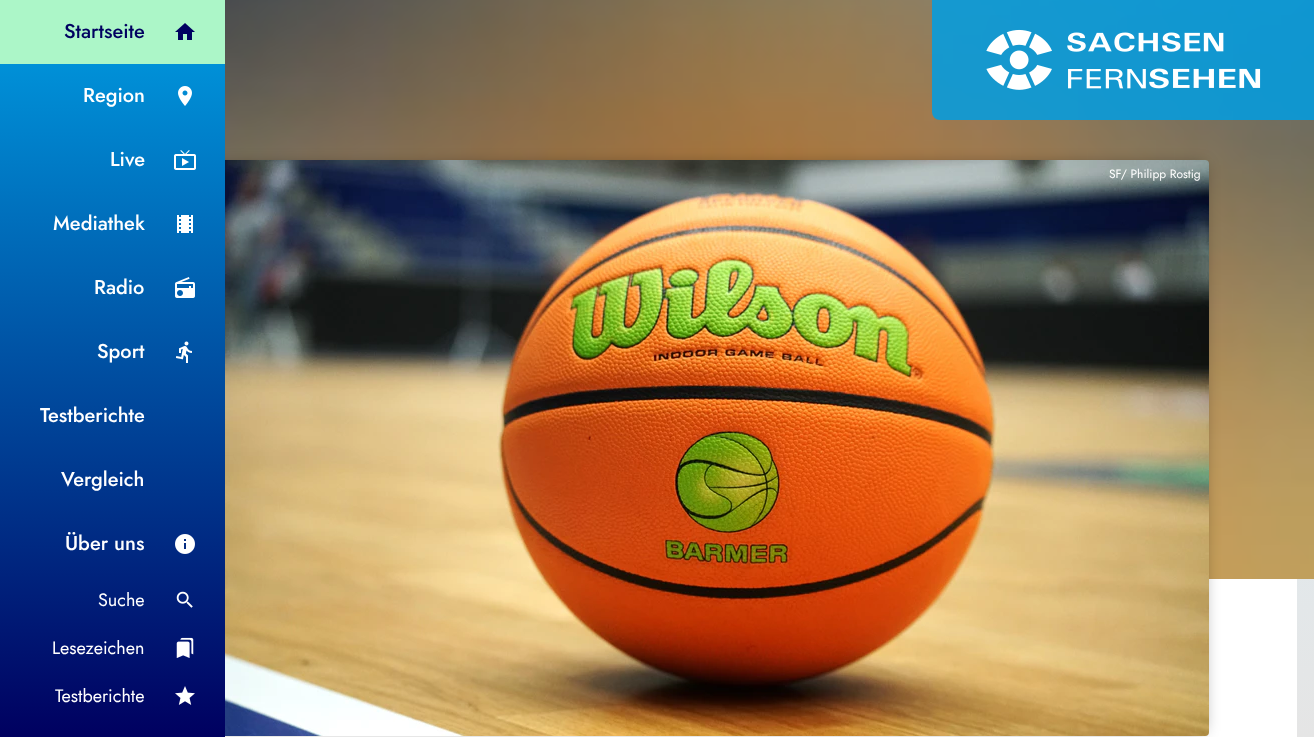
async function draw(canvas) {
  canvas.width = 1314
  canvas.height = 737
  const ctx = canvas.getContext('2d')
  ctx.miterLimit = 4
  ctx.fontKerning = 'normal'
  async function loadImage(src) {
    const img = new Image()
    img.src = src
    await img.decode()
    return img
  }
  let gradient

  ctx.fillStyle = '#fff'
  ctx.fillRect(0, 0, 1314, 737)
  ctx.drawImage(await loadImage('image11.png'), 225, 0, 1089, 579)
  ctx.fillStyle = '#00000066'
  ctx.filter = 'blur(7.5px)'
  ctx.beginPath()
  ctx.rect(190, 165, 1014, 566)
  ctx.fill()
  ctx.filter = 'none'
  gradient = ctx.createLinearGradient(112, 0, 113, 737)
  gradient.addColorStop(0, '#009ee3')
  gradient.addColorStop(1, '#000060')
  ctx.fillStyle = gradient
  ctx.fillRect(0, 64, 225, 673)
  ctx.drawImage(await loadImage('image12.png'), 225, 160, 984, 576)
  ctx.save()
  ctx.beginPath()
  ctx.rect(0, 0, 225, 64)
  ctx.clip()
  ctx.fillStyle = '#acf6c8'
  ctx.beginPath()
  ctx.arc(185, 32, 336, 0, 2 * Math.PI)
  ctx.fill()
  ctx.restore()
  ctx.font = '500 20px Jost'
  ctx.fillStyle = '#000060'
  ctx.fillText('Startseite', 64, 38)
  ctx.drawImage(await loadImage('image0.png'), 175, 23, 20, 17)
  ctx.fillStyle = '#fff'
  ctx.fillText('Region', 83, 102)
  ctx.drawImage(await loadImage('image1.png'), 178, 86, 14, 20)
  ctx.fillText('Live', 110, 166)
  ctx.drawImage(await loadImage('image2.png'), 174, 150, 22, 20)
  ctx.fillText('Mediathek', 53, 230)
  ctx.drawImage(await loadImage('image3.png'), 177, 215, 16, 18)
  ctx.fillText('Radio', 94, 294)
  ctx.drawImage(await loadImage('image4.png'), 175, 277, 20, 21)
  ctx.fillText('Sport', 97, 358)
  ctx.drawImage(await loadImage('image5.png'), 175, 341, 17, 22)
  ctx.fillText('Testberichte', 40, 422)
  ctx.fillText('Vergleich', 61, 486)
  ctx.fillText('Über uns', 65, 550)
  ctx.drawImage(await loadImage('image6.png'), 175, 534, 20, 20)
  ctx.font = '18px Jost'
  ctx.fillText('Suche', 98, 606)
  ctx.drawImage(await loadImage('image7.png'), 176, 591, 17, 17)
  ctx.fillText('Lesezeichen', 52, 654)
  ctx.drawImage(await loadImage('image8.png'), 176, 637, 18, 21)
  ctx.fillText('Testberichte', 55, 702)
  ctx.drawImage(await loadImage('image9.png'), 175, 686, 20, 19)
  ctx.fillStyle = '#009ee3d9'
  ctx.beginPath()
  ctx.roundRect(932, 0, 382, 120, [0, 0, 0, 8])
  ctx.fill()
  ctx.drawImage(await loadImage('image10.png'), 986, 29, 275, 61)
  gradient = ctx.createLinearGradient(657, 0, 657, 737)
  gradient.addColorStop(0, '#daf1fc')
  gradient.addColorStop(1, '#e5e5e5')
  ctx.fillStyle = gradient
  ctx.fillRect(1297, 579, 17, 158)
  ctx.font = '12px Jost'
  ctx.fillStyle = '#fff'
  ctx.fillText('SF/ Philipp Rostig', 1109, 178)
}

draw(document.querySelector('canvas'))
